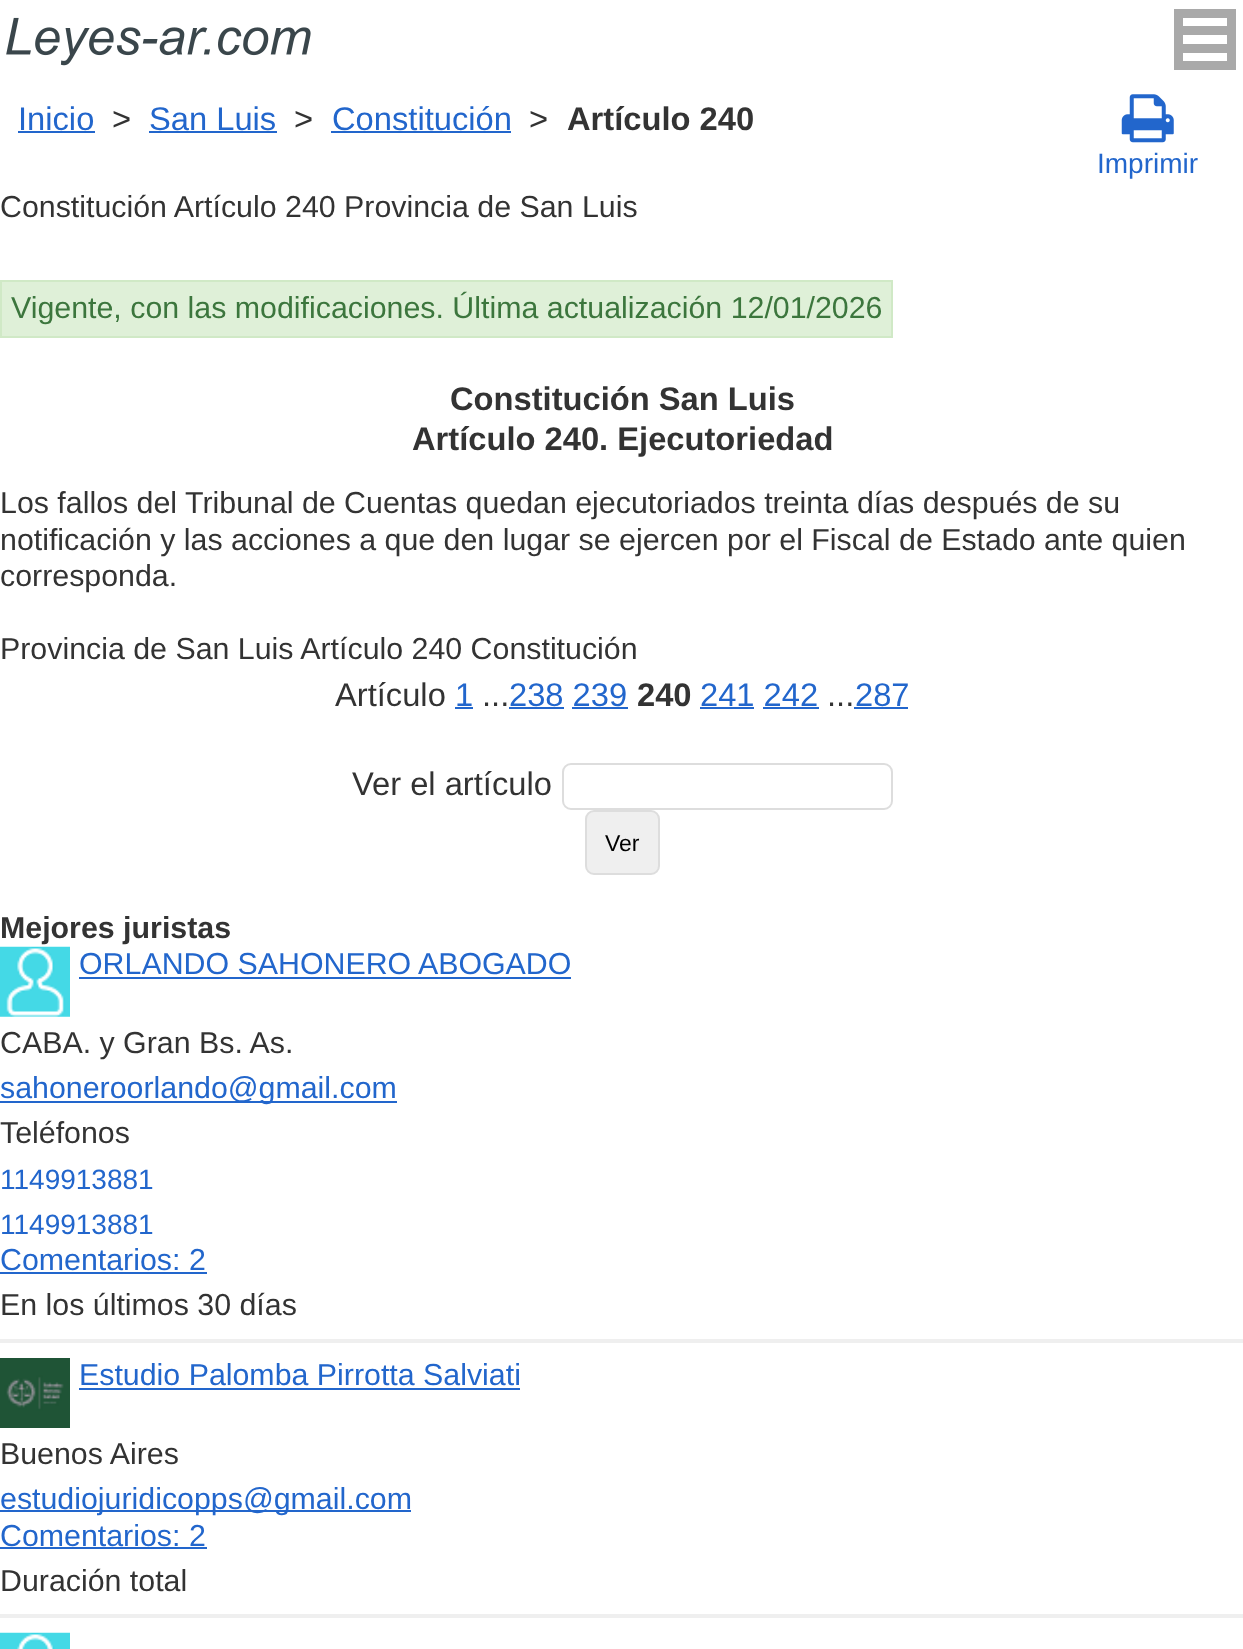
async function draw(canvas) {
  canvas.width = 1243
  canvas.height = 1649
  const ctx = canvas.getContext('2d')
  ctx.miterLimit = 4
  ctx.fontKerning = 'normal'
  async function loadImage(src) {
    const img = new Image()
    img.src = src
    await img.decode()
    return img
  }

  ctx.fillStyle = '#fff'
  ctx.fillRect(0, 0, 1243, 1649)
  ctx.drawImage(await loadImage('image0.png'), 6, 17, 305, 49)
  ctx.fillStyle = '#a9a9a9'
  ctx.fillRect(1174, 9, 62, 61)
  ctx.fillStyle = '#fff'
  ctx.fillRect(1183, 18, 44, 8)
  ctx.fillRect(1183, 35, 44, 9)
  ctx.fillRect(1183, 53, 44, 8)
  ctx.font = '32.7px Liberation Sans'
  ctx.fillStyle = '#26c'
  ctx.fillText('Inicio', 18, 130)
  ctx.fillRect(18, 131, 77, 2)
  ctx.fillStyle = '#333'
  ctx.fillText('>', 112, 130)
  ctx.fillStyle = '#26c'
  ctx.fillText('San Luis', 149, 130)
  ctx.fillRect(149, 131, 128, 2)
  ctx.fillStyle = '#333'
  ctx.fillText('>', 294, 130)
  ctx.fillStyle = '#26c'
  ctx.fillText('Constitución', 332, 130)
  ctx.fillRect(331, 131, 180, 2)
  ctx.fillStyle = '#333'
  ctx.fillText('>', 529, 130)
  ctx.font = 'bold 32.7px Liberation Sans'
  ctx.fillText('Artículo 240', 567, 130)
  ctx.drawImage(await loadImage('image1.png'), 1121, 94, 53, 49)
  ctx.font = '28px Liberation Sans'
  ctx.fillStyle = '#26c'
  ctx.fillText('Imprimir', 1097, 173)
  ctx.font = '30.35px Liberation Sans'
  ctx.fillStyle = '#333'
  ctx.fillText('Constitución Artículo 240 Provincia de San Luis', 0, 217)
  ctx.fillStyle = '#dff0d8'
  ctx.beginPath()
  ctx.rect(1, 281, 891, 56)
  ctx.fill()
  ctx.strokeStyle = '#d0e9c6'
  ctx.lineWidth = 2
  ctx.stroke()
  ctx.fillStyle = '#3c763d'
  ctx.fillText('Vigente, con las modificaciones. Última actualización 12/01/2026', 11, 318)
  ctx.font = 'bold 32.7px Liberation Sans'
  ctx.fillStyle = '#333'
  ctx.fillText('Constitución San Luis', 450, 410)
  ctx.fillText('Artículo 240. Ejecutoriedad', 412, 450)
  ctx.font = '30.35px Liberation Sans'
  ctx.fillText('Los fallos del Tribunal de Cuentas quedan ejecutoriados treinta días después de su', 0, 513)
  ctx.fillText('notificación y las acciones a que den lugar se ejercen por el Fiscal de Estado ante quien', 0, 550)
  ctx.fillText('corresponda.', 0, 586)
  ctx.fillText('Provincia de San Luis Artículo 240 Constitución', 0, 659)
  ctx.font = '32.7px Liberation Sans'
  ctx.fillText('Artículo', 335, 706)
  ctx.fillStyle = '#26c'
  ctx.fillText('1', 455, 706)
  ctx.fillRect(455, 707, 18, 2)
  ctx.fillStyle = '#333'
  ctx.fillText('...', 482, 706)
  ctx.fillStyle = '#26c'
  ctx.fillText('238 239', 509, 706)
  ctx.fillRect(509, 707, 55, 2)
  ctx.font = 'bold 32.7px Liberation Sans'
  ctx.fillStyle = '#333'
  ctx.fillText('240', 637, 706)
  ctx.font = '32.7px Liberation Sans'
  ctx.fillStyle = '#26c'
  ctx.fillText('241 242', 700, 706)
  ctx.fillRect(700, 707, 54, 2)
  ctx.fillStyle = '#333'
  ctx.fillText('...', 827, 706)
  ctx.fillStyle = '#26c'
  ctx.fillText('287', 855, 706)
  ctx.fillRect(854, 707, 54, 2)
  ctx.fillRect(572, 707, 56, 2)
  ctx.fillRect(763, 707, 56, 2)
  ctx.fillStyle = '#333'
  ctx.fillText('Ver el artículo', 352, 795)
  ctx.beginPath()
  ctx.roundRect(563, 764, 329, 45, 8)
  ctx.strokeStyle = '#ddd'
  ctx.stroke()
  ctx.fillStyle = '#efefef'
  ctx.beginPath()
  ctx.roundRect(586, 811, 73, 63, 8)
  ctx.fill()
  ctx.stroke()
  ctx.font = '23px Liberation Sans'
  ctx.fillStyle = '#000'
  ctx.fillText('Ver', 605, 851)
  ctx.font = 'bold 30.35px Liberation Sans'
  ctx.fillStyle = '#333'
  ctx.fillText('Mejores juristas', 0, 938)
  ctx.drawImage(await loadImage('image2.png'), 0, 946, 70, 71)
  ctx.font = '30.35px Liberation Sans'
  ctx.fillStyle = '#26c'
  ctx.fillText('ORLANDO SAHONERO ABOGADO', 79, 974)
  ctx.fillRect(79, 977, 492, 2)
  ctx.fillStyle = '#333'
  ctx.fillText('CABA. y Gran Bs. As.', 0, 1053)
  ctx.fillStyle = '#26c'
  ctx.fillRect(0, 1101, 397, 2)
  ctx.fillText('sahoneroorlando@gmail.com', 0, 1098)
  ctx.fillStyle = '#333'
  ctx.fillText('Teléfonos', 0, 1143)
  ctx.font = '28px Liberation Sans'
  ctx.fillStyle = '#26c'
  ctx.fillText('1149913881', 0, 1189)
  ctx.fillText('1149913881', 0, 1234)
  ctx.font = '30.35px Liberation Sans'
  ctx.fillText('Сomentarios: 2', 0, 1270)
  ctx.fillRect(0, 1272, 207, 2)
  ctx.fillStyle = '#333'
  ctx.fillText('En los últimos 30 días', 0, 1315)
  ctx.fillStyle = '#efefef'
  ctx.fillRect(0, 1339, 1243, 4)
  ctx.drawImage(await loadImage('image3.png'), 0, 1358, 70, 70)
  ctx.fillStyle = '#26c'
  ctx.fillText('Estudio Palomba Pirrotta Salviati', 79, 1385)
  ctx.fillRect(79, 1388, 441, 2)
  ctx.fillStyle = '#333'
  ctx.fillText('Buenos Aires', 0, 1464)
  ctx.fillStyle = '#26c'
  ctx.fillRect(0, 1510, 411, 2)
  ctx.fillText('estudiojuridicopps@gmail.com', 0, 1509)
  ctx.fillText('Сomentarios: 2', 0, 1546)
  ctx.fillRect(0, 1547, 207, 2)
  ctx.fillStyle = '#333'
  ctx.fillText('Duración total', 0, 1591)
  ctx.fillStyle = '#efefef'
  ctx.fillRect(0, 1614, 1243, 4)
  ctx.drawImage(await loadImage('image4.png'), 0, 1632, 70, 17)
}

draw(document.querySelector('canvas'))
